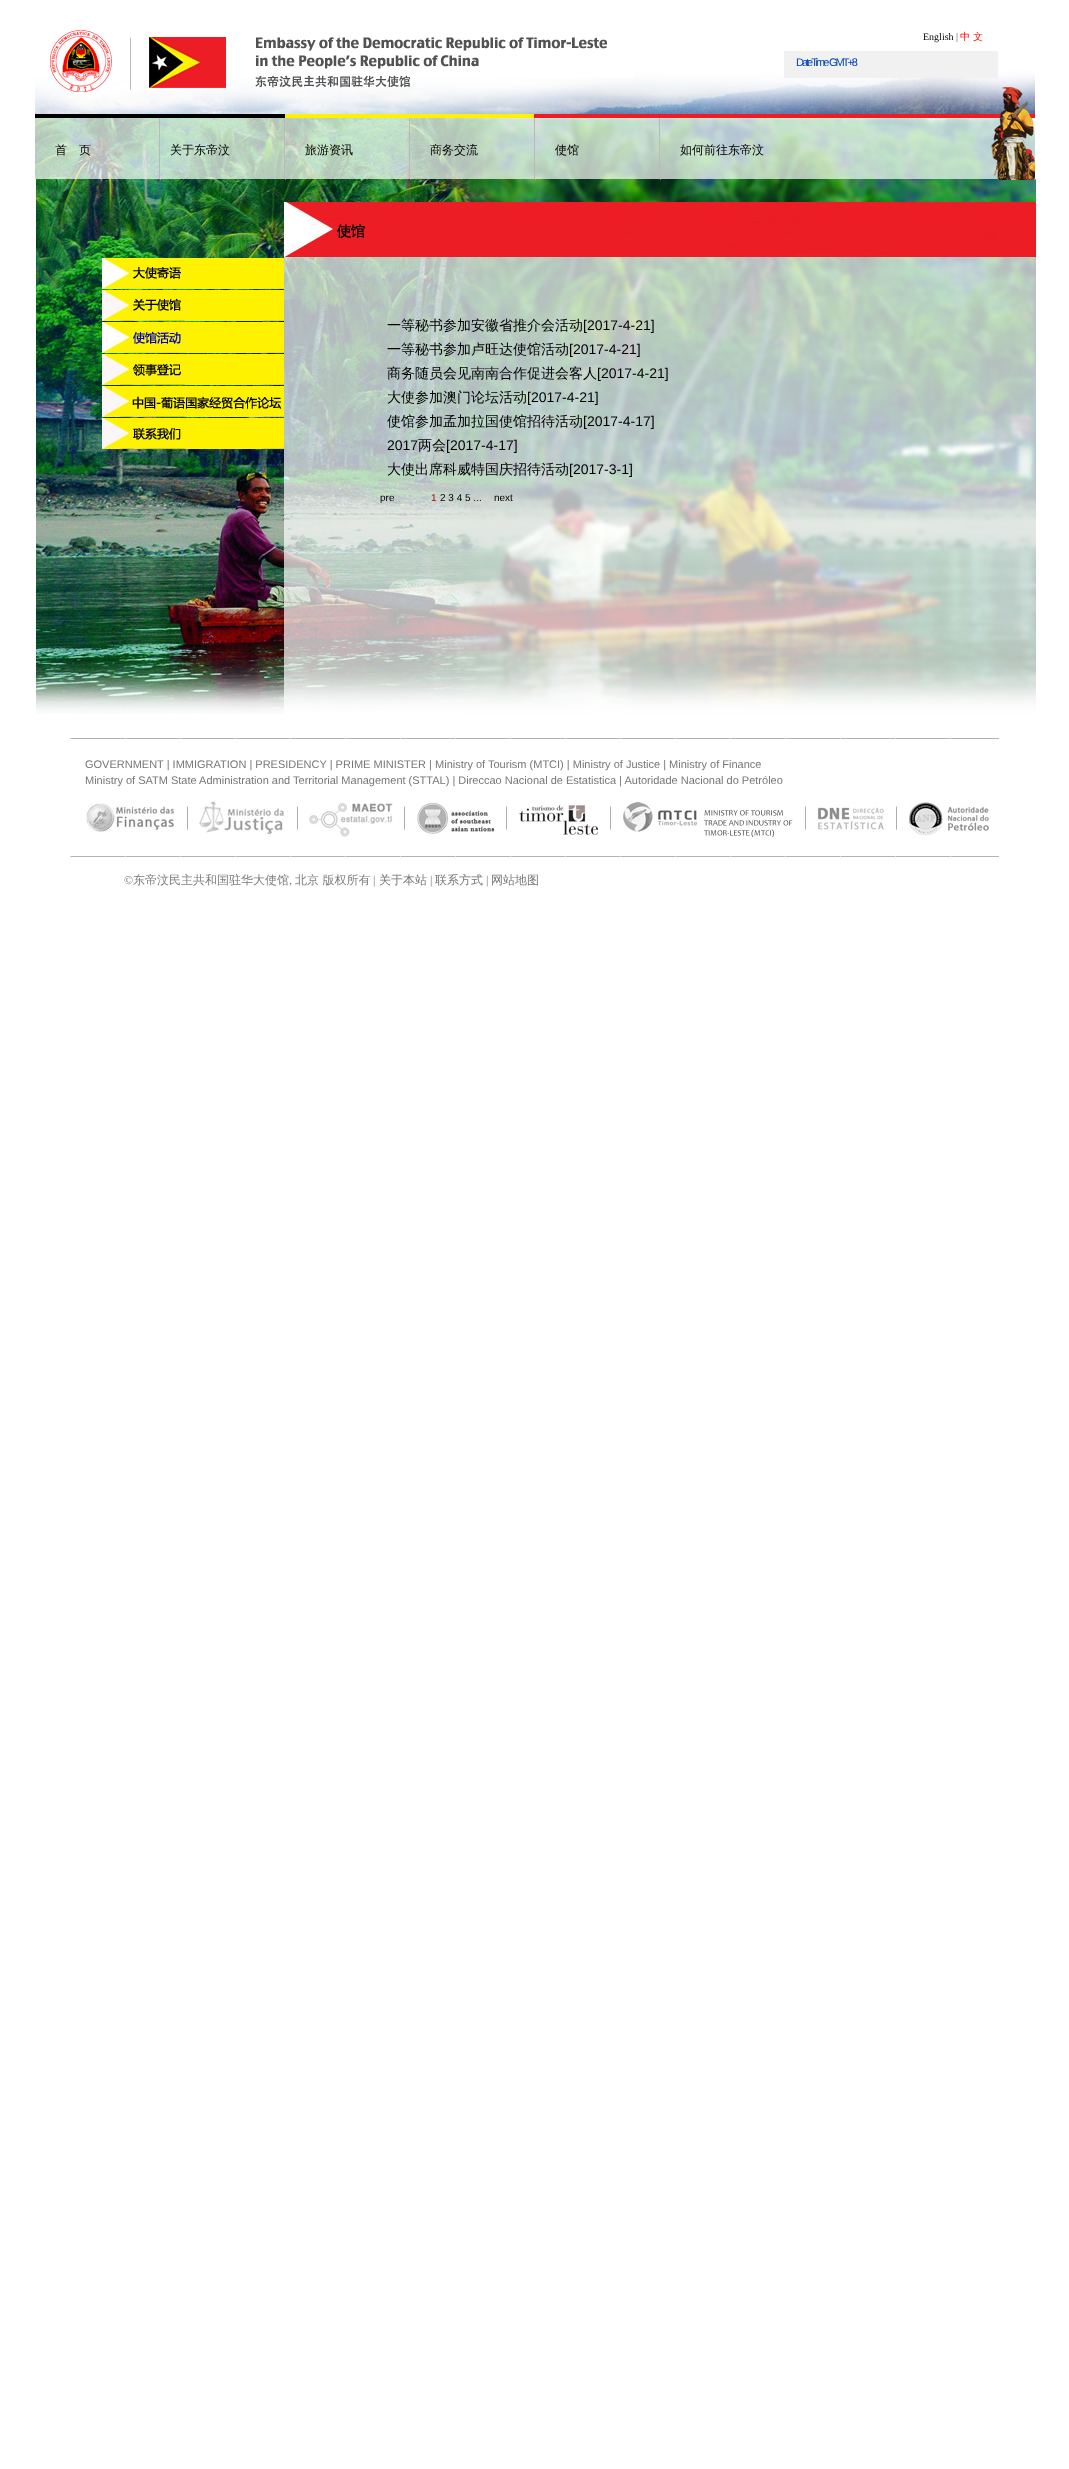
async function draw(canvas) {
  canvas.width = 1069
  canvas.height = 2469
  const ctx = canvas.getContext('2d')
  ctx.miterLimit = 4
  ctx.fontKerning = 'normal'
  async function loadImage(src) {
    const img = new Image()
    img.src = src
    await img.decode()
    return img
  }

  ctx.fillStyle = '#fff'
  ctx.fillRect(0, 0, 1069, 2469)
  ctx.drawImage(await loadImage('image0.png'), 35, 78, 599, 40)
  ctx.drawImage(await loadImage('image1.png'), 50, 30, 62, 62)
  ctx.drawImage(await loadImage('image2.png'), 130, 37, 1, 53)
  ctx.drawImage(await loadImage('image3.png'), 149, 37, 77, 51)
  ctx.drawImage(await loadImage('image4.png'), 255, 37, 352, 51)
  ctx.drawImage(await loadImage('image5.png'), 634, 71, 401, 47)
  ctx.font = '10px Liberation Serif'
  ctx.fillStyle = '#000'
  ctx.fillText('English', 923, 40)
  ctx.fillStyle = '#525252'
  ctx.fillText('|', 956, 40)
  ctx.font = '500 10px WenQuanYi Zen Hei'
  ctx.fillStyle = '#f00'
  ctx.fillText('中 文', 960, 40)
  ctx.fillStyle = '#f1f1f1'
  ctx.fillRect(784, 51, 214, 27)
  ctx.letterSpacing = '-2px'
  ctx.font = '11px Liberation Sans'
  ctx.fillStyle = '#0143b4'
  ctx.fillText('DateTime', 796, 66)
  ctx.fillText('GMT+8', 829, 66)
  ctx.drawImage(await loadImage('image6.png'), 35, 118, 1000, 61)
  ctx.letterSpacing = '0px'
  ctx.font = '500 12px WenQuanYi Zen Hei'
  ctx.fillStyle = '#000'
  ctx.fillText('首', 55, 154)
  ctx.fillText('页', 79, 154)
  ctx.fillText('关于东帝汶', 170, 154)
  ctx.fillText('旅游资讯', 305, 154)
  ctx.fillText('商务交流', 430, 154)
  ctx.fillText('使馆', 555, 154)
  ctx.fillText('如何前往东帝汶', 680, 154)
  ctx.drawImage(await loadImage('image7.png'), 36, 179, 1000, 536)
  ctx.drawImage(await loadImage('image8.png'), 102, 258, 182, 31)
  ctx.drawImage(await loadImage('image9.png'), 102, 290, 182, 31)
  ctx.drawImage(await loadImage('image10.png'), 102, 322, 182, 31)
  ctx.drawImage(await loadImage('image11.png'), 102, 354, 182, 31)
  ctx.drawImage(await loadImage('image12.png'), 102, 386, 182, 31)
  ctx.drawImage(await loadImage('image13.png'), 102, 418, 182, 31)
  ctx.drawImage(await loadImage('image14.png'), 284, 202, 752, 55)
  ctx.drawImage(await loadImage('image15.png'), 284, 257, 752, 458)
  ctx.font = '500 14px WenQuanYi Zen Hei'
  ctx.fillText('一等秘书参加安徽省推介会活动', 387, 330)
  ctx.font = '14px Liberation Sans'
  ctx.fillText('[2017-4-21]', 583, 330)
  ctx.font = '500 14px WenQuanYi Zen Hei'
  ctx.fillText('一等秘书参加卢旺达使馆活动', 387, 354)
  ctx.font = '14px Liberation Sans'
  ctx.fillText('[2017-4-21]', 569, 354)
  ctx.font = '500 14px WenQuanYi Zen Hei'
  ctx.fillText('商务随员会见南南合作促进会客人', 387, 378)
  ctx.font = '14px Liberation Sans'
  ctx.fillText('[2017-4-21]', 597, 378)
  ctx.font = '500 14px WenQuanYi Zen Hei'
  ctx.fillText('大使参加澳门论坛活动', 387, 402)
  ctx.font = '14px Liberation Sans'
  ctx.fillText('[2017-4-21]', 527, 402)
  ctx.font = '500 14px WenQuanYi Zen Hei'
  ctx.fillText('使馆参加孟加拉国使馆招待活动', 387, 426)
  ctx.font = '14px Liberation Sans'
  ctx.fillText('[2017-4-17]', 583, 426)
  ctx.fillText('2017', 387, 450)
  ctx.font = '500 14px WenQuanYi Zen Hei'
  ctx.fillText('两会', 418, 450)
  ctx.font = '14px Liberation Sans'
  ctx.fillText('[2017-4-17]', 446, 450)
  ctx.font = '500 14px WenQuanYi Zen Hei'
  ctx.fillText('大使出席科威特国庆招待活动', 387, 474)
  ctx.font = '14px Liberation Sans'
  ctx.fillText('[2017-3-1]', 569, 474)
  ctx.font = '10px Liberation Sans'
  ctx.fillText('pre', 380, 501)
  ctx.fillStyle = '#900'
  ctx.fillText('1', 431, 501)
  ctx.fillStyle = '#000'
  ctx.fillText('2 3 4 5 ...', 440, 501)
  ctx.fillText('next', 494, 501)
  ctx.drawImage(await loadImage('image16.png'), 70, 738, 929, 1)
  ctx.font = '11px Liberation Sans'
  ctx.fillStyle = '#767676'
  ctx.fillText('GOVERNMENT | IMMIGRATION | PRESIDENCY | PRIME MINISTER | Ministry of Tourism (MTCI) | Ministry of Justice | Ministry of Finance', 85, 768)
  ctx.fillText('Ministry of SATM State Administration and Territorial Management (STTAL) | Direccao Nacional de Estatistica | Autoridade Nacional do Petróleo', 85, 784)
  ctx.drawImage(await loadImage('image17.png'), 86, 801, 90, 31)
  ctx.drawImage(await loadImage('image18.png'), 187, 806, 1, 24)
  ctx.drawImage(await loadImage('image19.png'), 199, 801, 86, 34)
  ctx.drawImage(await loadImage('image18.png'), 297, 806, 1, 24)
  ctx.drawImage(await loadImage('image20.png'), 309, 802, 84, 35)
  ctx.drawImage(await loadImage('image18.png'), 404, 806, 1, 24)
  ctx.drawImage(await loadImage('image21.png'), 417, 802, 78, 32)
  ctx.drawImage(await loadImage('image18.png'), 506, 806, 1, 24)
  ctx.drawImage(await loadImage('image22.png'), 519, 801, 79, 34)
  ctx.drawImage(await loadImage('image18.png'), 610, 806, 1, 24)
  ctx.drawImage(await loadImage('image23.png'), 623, 802, 170, 35)
  ctx.drawImage(await loadImage('image18.png'), 805, 806, 1, 24)
  ctx.drawImage(await loadImage('image24.png'), 817, 801, 67, 31)
  ctx.drawImage(await loadImage('image18.png'), 896, 806, 1, 24)
  ctx.drawImage(await loadImage('image25.png'), 908, 802, 81, 34)
  ctx.drawImage(await loadImage('image16.png'), 70, 856, 929, 1)
  ctx.font = '12px Liberation Serif'
  ctx.fillStyle = '#7d7d7d'
  ctx.fillText('©', 124, 884)
  ctx.font = '500 12px WenQuanYi Zen Hei'
  ctx.fillText('东帝汶民主共和国驻华大使馆', 133, 884)
  ctx.font = '12px Liberation Serif'
  ctx.fillText(',', 289, 884)
  ctx.font = '500 12px WenQuanYi Zen Hei'
  ctx.fillText('北京 版权所有', 295, 884)
  ctx.font = '12px Liberation Serif'
  ctx.fillText('|', 373, 884)
  ctx.font = '500 12px WenQuanYi Zen Hei'
  ctx.fillStyle = '#767676'
  ctx.fillText('关于本站', 379, 884)
  ctx.font = '12px Liberation Serif'
  ctx.fillStyle = '#7d7d7d'
  ctx.fillText('|', 430, 884)
  ctx.font = '500 12px WenQuanYi Zen Hei'
  ctx.fillStyle = '#767676'
  ctx.fillText('联系方式', 435, 884)
  ctx.font = '12px Liberation Serif'
  ctx.fillStyle = '#7d7d7d'
  ctx.fillText('|', 486, 884)
  ctx.font = '500 12px WenQuanYi Zen Hei'
  ctx.fillStyle = '#767676'
  ctx.fillText('网站地图', 491, 884)
}

draw(document.querySelector('canvas'))
